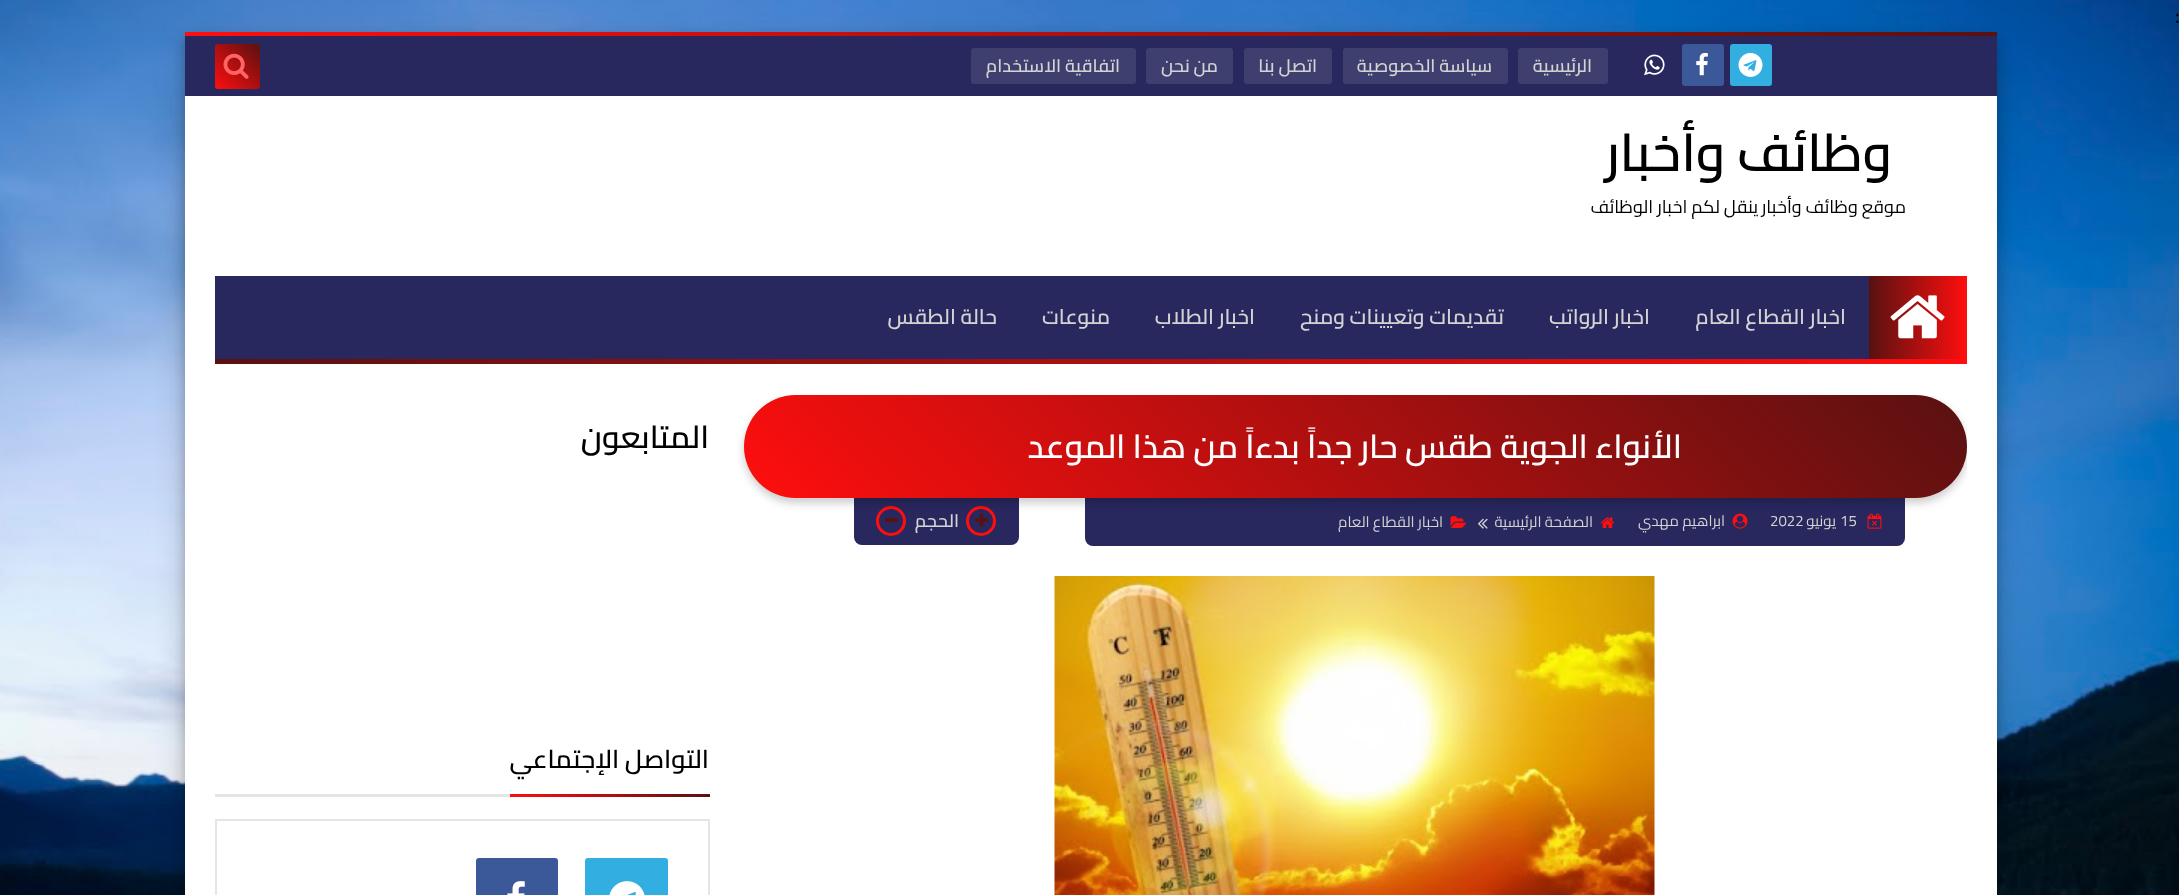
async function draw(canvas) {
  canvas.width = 2179
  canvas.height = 895
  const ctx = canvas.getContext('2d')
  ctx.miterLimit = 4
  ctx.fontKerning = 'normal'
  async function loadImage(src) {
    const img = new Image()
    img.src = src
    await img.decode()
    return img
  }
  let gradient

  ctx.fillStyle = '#fff'
  ctx.fillRect(0, 0, 2179, 895)
  ctx.drawImage(await loadImage('image0.png'), 0, 0, 2179, 895)
  ctx.font = '21px Cairo'
  ctx.fillStyle = '#000'
  ctx.fillText(':', 2175, 23)
  ctx.fillStyle = '#00000030'
  ctx.filter = 'blur(15px)'
  ctx.beginPath()
  ctx.rect(185, 41, 1812, 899)
  ctx.fill()
  ctx.filter = 'none'
  ctx.fillStyle = '#00000033'
  ctx.filter = 'blur(6px)'
  ctx.beginPath()
  ctx.rect(185, 38, 1812, 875)
  ctx.fill()
  ctx.filter = 'none'
  ctx.fillStyle = '#fff'
  ctx.fillRect(185, 96, 1812, 799)
  gradient = ctx.createLinearGradient(636, 488, 1545, -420)
  gradient.addColorStop(0, '#ff0e0e')
  gradient.addColorStop(1, '#591111')
  ctx.fillStyle = gradient
  ctx.fillRect(185, 32, 1812, 4)
  ctx.fillStyle = '#28285f'
  ctx.fillRect(185, 36, 1812, 60)
  ctx.fillStyle = '#32aee1'
  ctx.beginPath()
  ctx.roundRect(1730, 44, 42, 42, 3)
  ctx.fill()
  ctx.drawImage(await loadImage('image1.png'), 1738, 52, 25, 25)
  ctx.fillStyle = '#3b5998'
  ctx.beginPath()
  ctx.roundRect(1682, 44, 42, 42, 3)
  ctx.fill()
  ctx.drawImage(await loadImage('image2.png'), 1696, 52, 12, 24)
  ctx.drawImage(await loadImage('image3.png'), 1644, 54, 21, 22)
  ctx.fillStyle = '#3e3e6f'
  ctx.beginPath()
  ctx.roundRect(1518, 48, 90, 36, 3)
  ctx.fill()
  ctx.direction = 'rtl'
  ctx.font = '600 18px Cairo'
  ctx.fillStyle = '#d3d3d3'
  ctx.fillText('الرئيسية', 1592, 72)
  ctx.fillStyle = '#3e3e6f'
  ctx.beginPath()
  ctx.roundRect(1343, 48, 165, 36, 3)
  ctx.fill()
  ctx.fillStyle = '#d3d3d3'
  ctx.fillText('سياسة الخصوصية', 1492, 72)
  ctx.fillStyle = '#3e3e6f'
  ctx.beginPath()
  ctx.roundRect(1244, 48, 88, 36, 3)
  ctx.fill()
  ctx.fillStyle = '#d3d3d3'
  ctx.fillText('اتصل بنا', 1317, 72)
  ctx.fillStyle = '#3e3e6f'
  ctx.beginPath()
  ctx.roundRect(1146, 48, 87, 36, 3)
  ctx.fill()
  ctx.fillStyle = '#d3d3d3'
  ctx.fillText('من نحن', 1218, 72)
  ctx.fillStyle = '#3e3e6f'
  ctx.beginPath()
  ctx.roundRect(971, 48, 165, 36, 3)
  ctx.fill()
  ctx.fillStyle = '#d3d3d3'
  ctx.fillText('اتفاقية الاستخدام', 1120, 72)
  gradient = ctx.createLinearGradient(215, 89, 260, 44)
  gradient.addColorStop(0, '#ff0e0e')
  gradient.addColorStop(1, '#591111')
  ctx.fillStyle = gradient
  ctx.beginPath()
  ctx.roundRect(215, 44, 45, 45, 3)
  ctx.fill()
  ctx.drawImage(await loadImage('image4.png'), 223, 53, 26, 26)
  ctx.font = '600 52.5px Cairo'
  ctx.fillStyle = '#000'
  ctx.fillText('وظائف وأخبار', 1892, 171)
  ctx.font = '18px Cairo'
  ctx.fillText('موقع وظائف وأخبار', 1906, 213)
  ctx.fillText('ينقل لكم اخبار الوظائف', 1758, 213)
  ctx.fillStyle = '#28285f'
  ctx.fillRect(215, 276, 1654, 83)
  gradient = ctx.createLinearGradient(1967, 317, 1869, 317)
  gradient.addColorStop(0, '#ff0e0e')
  gradient.addColorStop(1, '#591111')
  ctx.fillStyle = gradient
  ctx.fillRect(1869, 276, 98, 83)
  ctx.drawImage(await loadImage('image5.png'), 1890, 295, 55, 44)
  ctx.font = '600 21px Cairo'
  ctx.fillStyle = '#d3d3d3'
  ctx.fillText('اخبار القطاع العام', 1846, 324)
  ctx.fillText('اخبار الرواتب', 1650, 324)
  ctx.fillText('تقديمات وتعيينات ومنح', 1504, 324)
  ctx.fillText('اخبار الطلاب', 1255, 324)
  ctx.fillText('منوعات', 1110, 324)
  ctx.fillText('حالة الطقس', 997, 324)
  gradient = ctx.createLinearGradient(1967, 361, 215, 361)
  gradient.addColorStop(0, '#ff0e0e')
  gradient.addColorStop(1, '#591111')
  ctx.fillStyle = gradient
  ctx.fillRect(215, 359, 1752, 5)
  ctx.fillStyle = '#28285f'
  ctx.beginPath()
  ctx.roundRect(1085, 498, 820, 48, [0, 0, 8, 8])
  ctx.fill()
  ctx.drawImage(await loadImage('image6.png'), 1867, 513, 15, 16)
  ctx.drawImage(await loadImage('image7.png'), 1732, 513, 16, 16)
  ctx.beginPath()
  ctx.roundRect(854, 498, 165, 47, [0, 0, 8, 8])
  ctx.fill()
  ctx.beginPath()
  ctx.arc(981, 521, 13.5, 0, 2 * Math.PI)
  ctx.strokeStyle = '#ff0e0e'
  ctx.lineWidth = 3
  ctx.stroke()
  ctx.drawImage(await loadImage('image11.png'), 975, 513, 13, 14)
  ctx.beginPath()
  ctx.arc(891, 521, 13.5, 0, 2 * Math.PI)
  ctx.stroke()
  ctx.save()
  ctx.beginPath()
  ctx.rect(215, 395, 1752, 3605)
  ctx.clip()
  ctx.fillStyle = '#00000033'
  ctx.filter = 'blur(4px)'
  ctx.beginPath()
  ctx.roundRect(744, 399, 1223, 104, 52)
  ctx.fill()
  ctx.filter = 'none'
  ctx.restore()
  gradient = ctx.createLinearGradient(1024, 778, 1687, 115)
  gradient.addColorStop(0, '#ff0e0e')
  gradient.addColorStop(1, '#591111')
  ctx.fillStyle = gradient
  ctx.beginPath()
  ctx.roundRect(744, 395, 1223, 103, 51.5)
  ctx.fill()
  ctx.font = '600 33px Cairo'
  ctx.fillStyle = '#fff'
  ctx.fillText('الأنواء الجوية طقس حار جداً بدءاً من هذا الموعد', 1682, 458)
  ctx.direction = 'ltr'
  ctx.font = '15px Cairo'
  ctx.fillStyle = '#d3d3d3'
  ctx.fillText('15', 1840, 526)
  ctx.direction = 'rtl'
  ctx.fillText('يونيو', 1836, 526)
  ctx.direction = 'ltr'
  ctx.fillText('2022', 1770, 526)
  ctx.direction = 'rtl'
  ctx.fillText('ابراهيم مهدي', 1725, 526)
  ctx.drawImage(await loadImage('image8.png'), 1600, 517, 15, 11)
  ctx.fillText('الصفحة الرئيسية', 1593, 527)
  ctx.drawImage(await loadImage('image9.png'), 1478, 518, 10, 11)
  ctx.drawImage(await loadImage('image10.png'), 1450, 516, 17, 12)
  ctx.fillText('اخبار القطاع العام', 1443, 527)
  ctx.font = '600 18px Cairo'
  ctx.fillText('الحجم', 959, 527)
  ctx.fillStyle = '#591111'
  ctx.fillRect(885, 518, 13, 4)
  ctx.drawImage(await loadImage('image12.png'), 1054, 576, 601, 319)
  ctx.font = '600 31.5px Cairo'
  ctx.fillStyle = '#000'
  ctx.fillText('المتابعون', 709, 448)
  ctx.fillStyle = '#e5e5e5'
  ctx.fillRect(215, 794, 295, 3)
  ctx.font = '600 25.5px Cairo'
  ctx.fillStyle = '#000'
  ctx.fillText('التواصل الإجتماعي', 709, 768)
  gradient = ctx.createLinearGradient(559, 846, 660, 744)
  gradient.addColorStop(0, '#ff0e0e')
  gradient.addColorStop(1, '#591111')
  ctx.fillStyle = gradient
  ctx.fillRect(510, 794, 200, 3)
  ctx.strokeStyle = '#e5e5e5'
  ctx.lineWidth = 2
  ctx.strokeRect(216, 820, 493, 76)
  ctx.fillStyle = '#32aee1'
  ctx.beginPath()
  ctx.roundRect(585, 858, 83, 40, 3)
  ctx.fill()
  ctx.drawImage(await loadImage('image13.png'), 609, 881, 36, 14)
  ctx.fillStyle = '#3b5998'
  ctx.beginPath()
  ctx.roundRect(476, 858, 82, 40, 3)
  ctx.fill()
  ctx.drawImage(await loadImage('image14.png'), 507, 881, 18, 14)
}

draw(document.querySelector('canvas'))
